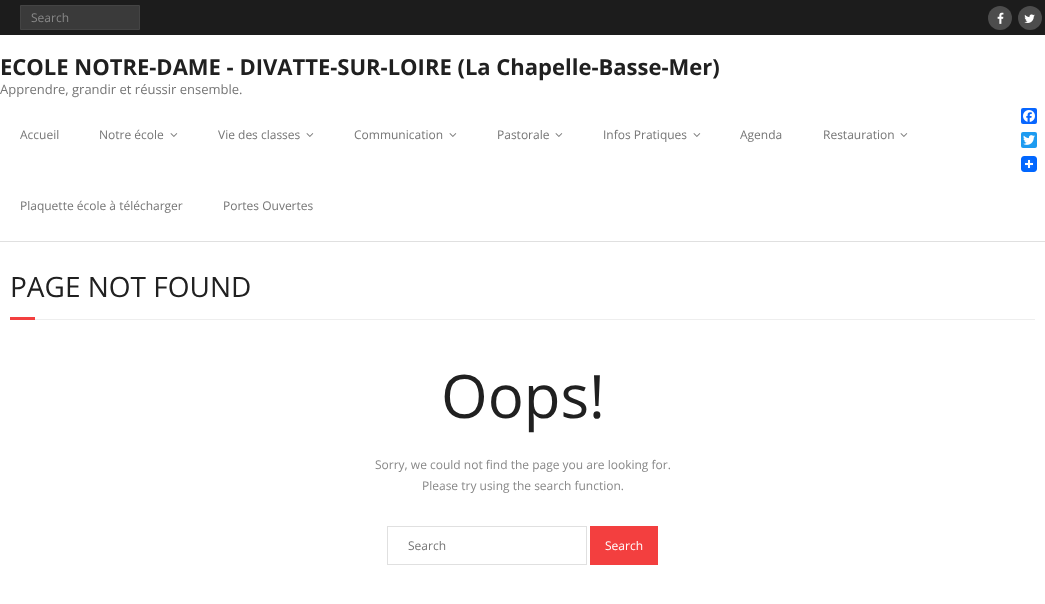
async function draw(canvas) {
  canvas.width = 1045
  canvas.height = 604
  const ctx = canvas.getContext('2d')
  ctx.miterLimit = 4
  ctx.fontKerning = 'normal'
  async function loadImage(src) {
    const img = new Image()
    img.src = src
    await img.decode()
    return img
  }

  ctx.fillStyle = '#fff'
  ctx.fillRect(0, 0, 1045, 604)
  ctx.fillStyle = '#1c1c1c'
  ctx.fillRect(0, 0, 1045, 35)
  ctx.fillStyle = '#3a3a3a'
  ctx.beginPath()
  ctx.rect(20.5, 5.5, 119, 24)
  ctx.fill()
  ctx.strokeStyle = '#444'
  ctx.stroke()
  ctx.font = '12px Open Sans'
  ctx.fillStyle = '#888'
  ctx.fillText('Search', 31, 22)
  ctx.fillStyle = '#4d4d4d'
  ctx.beginPath()
  ctx.arc(1000, 18, 12, 0, 2 * Math.PI)
  ctx.fill()
  ctx.drawImage(await loadImage('image0.png'), 997, 12, 7, 12)
  ctx.beginPath()
  ctx.arc(1030, 18, 12, 0, 2 * Math.PI)
  ctx.fill()
  ctx.drawImage(await loadImage('image1.png'), 1024, 14, 11, 9)
  ctx.fillStyle = '#e0e0e0'
  ctx.fillRect(0, 241, 1045, 1)
  ctx.font = 'bold 22px Open Sans'
  ctx.fillStyle = '#202020'
  ctx.fillText('ECOLE NOTRE-DAME - DIVATTE-SUR-LOIRE (La Chapelle-Basse-Mer)', 0, 75)
  ctx.font = '13px Open Sans'
  ctx.fillStyle = '#757575'
  ctx.fillText('Apprendre, grandir et réussir ensemble.', 0, 94)
  ctx.font = '12px Open Sans'
  ctx.fillText('Accueil', 20, 139)
  ctx.fillText('Notre école', 99, 139)
  ctx.drawImage(await loadImage('image2.png'), 170, 133, 8, 4)
  ctx.fillText('Vie des classes', 218, 139)
  ctx.drawImage(await loadImage('image2.png'), 306, 133, 8, 4)
  ctx.fillText('Communication', 354, 139)
  ctx.drawImage(await loadImage('image2.png'), 449, 133, 8, 4)
  ctx.fillText('Pastorale', 497, 139)
  ctx.drawImage(await loadImage('image2.png'), 555, 133, 8, 4)
  ctx.fillText('Infos Pratiques', 603, 139)
  ctx.drawImage(await loadImage('image2.png'), 693, 133, 8, 4)
  ctx.fillText('Agenda', 740, 139)
  ctx.fillText('Restauration', 823, 139)
  ctx.drawImage(await loadImage('image2.png'), 900, 133, 8, 4)
  ctx.fillText('Plaquette école à télécharger', 20, 210)
  ctx.fillText('Portes Ouvertes', 223, 210)
  ctx.font = '28px Open Sans'
  ctx.fillStyle = '#202020'
  ctx.fillText('PAGE NOT FOUND', 10, 297)
  ctx.fillStyle = '#f33f3f'
  ctx.fillRect(10, 317, 25, 3)
  ctx.fillStyle = '#eee'
  ctx.fillRect(35, 319, 1000, 1)
  ctx.font = '60px Open Sans'
  ctx.fillStyle = '#202020'
  ctx.fillText('Oops!', 441, 418)
  ctx.font = '12px Open Sans'
  ctx.fillStyle = '#888'
  ctx.fillText('Sorry, we could not find the page you are looking for.', 375, 469)
  ctx.fillText('Please try using the search function.', 422, 490)
  ctx.strokeStyle = '#e0e0e0'
  ctx.strokeRect(387.5, 526.5, 199, 38)
  ctx.fillStyle = '#757575'
  ctx.fillText('Search', 408, 550)
  ctx.fillStyle = '#f33f3f'
  ctx.fillRect(590, 526, 68, 39)
  ctx.fillStyle = '#fff'
  ctx.fillText('Search', 605, 550)
  ctx.fillStyle = '#0866ff'
  ctx.beginPath()
  ctx.roundRect(1021, 108, 16, 16, 2)
  ctx.fill()
  ctx.drawImage(await loadImage('image3.png'), 1023, 110, 12, 12)
  ctx.fillStyle = '#1d9bf0'
  ctx.beginPath()
  ctx.roundRect(1021, 132, 16, 16, 2)
  ctx.fill()
  ctx.drawImage(await loadImage('image4.png'), 1023, 135, 12, 10)
  ctx.drawImage(await loadImage('image5.png'), 1021, 156, 16, 16)
}

draw(document.querySelector('canvas'))
